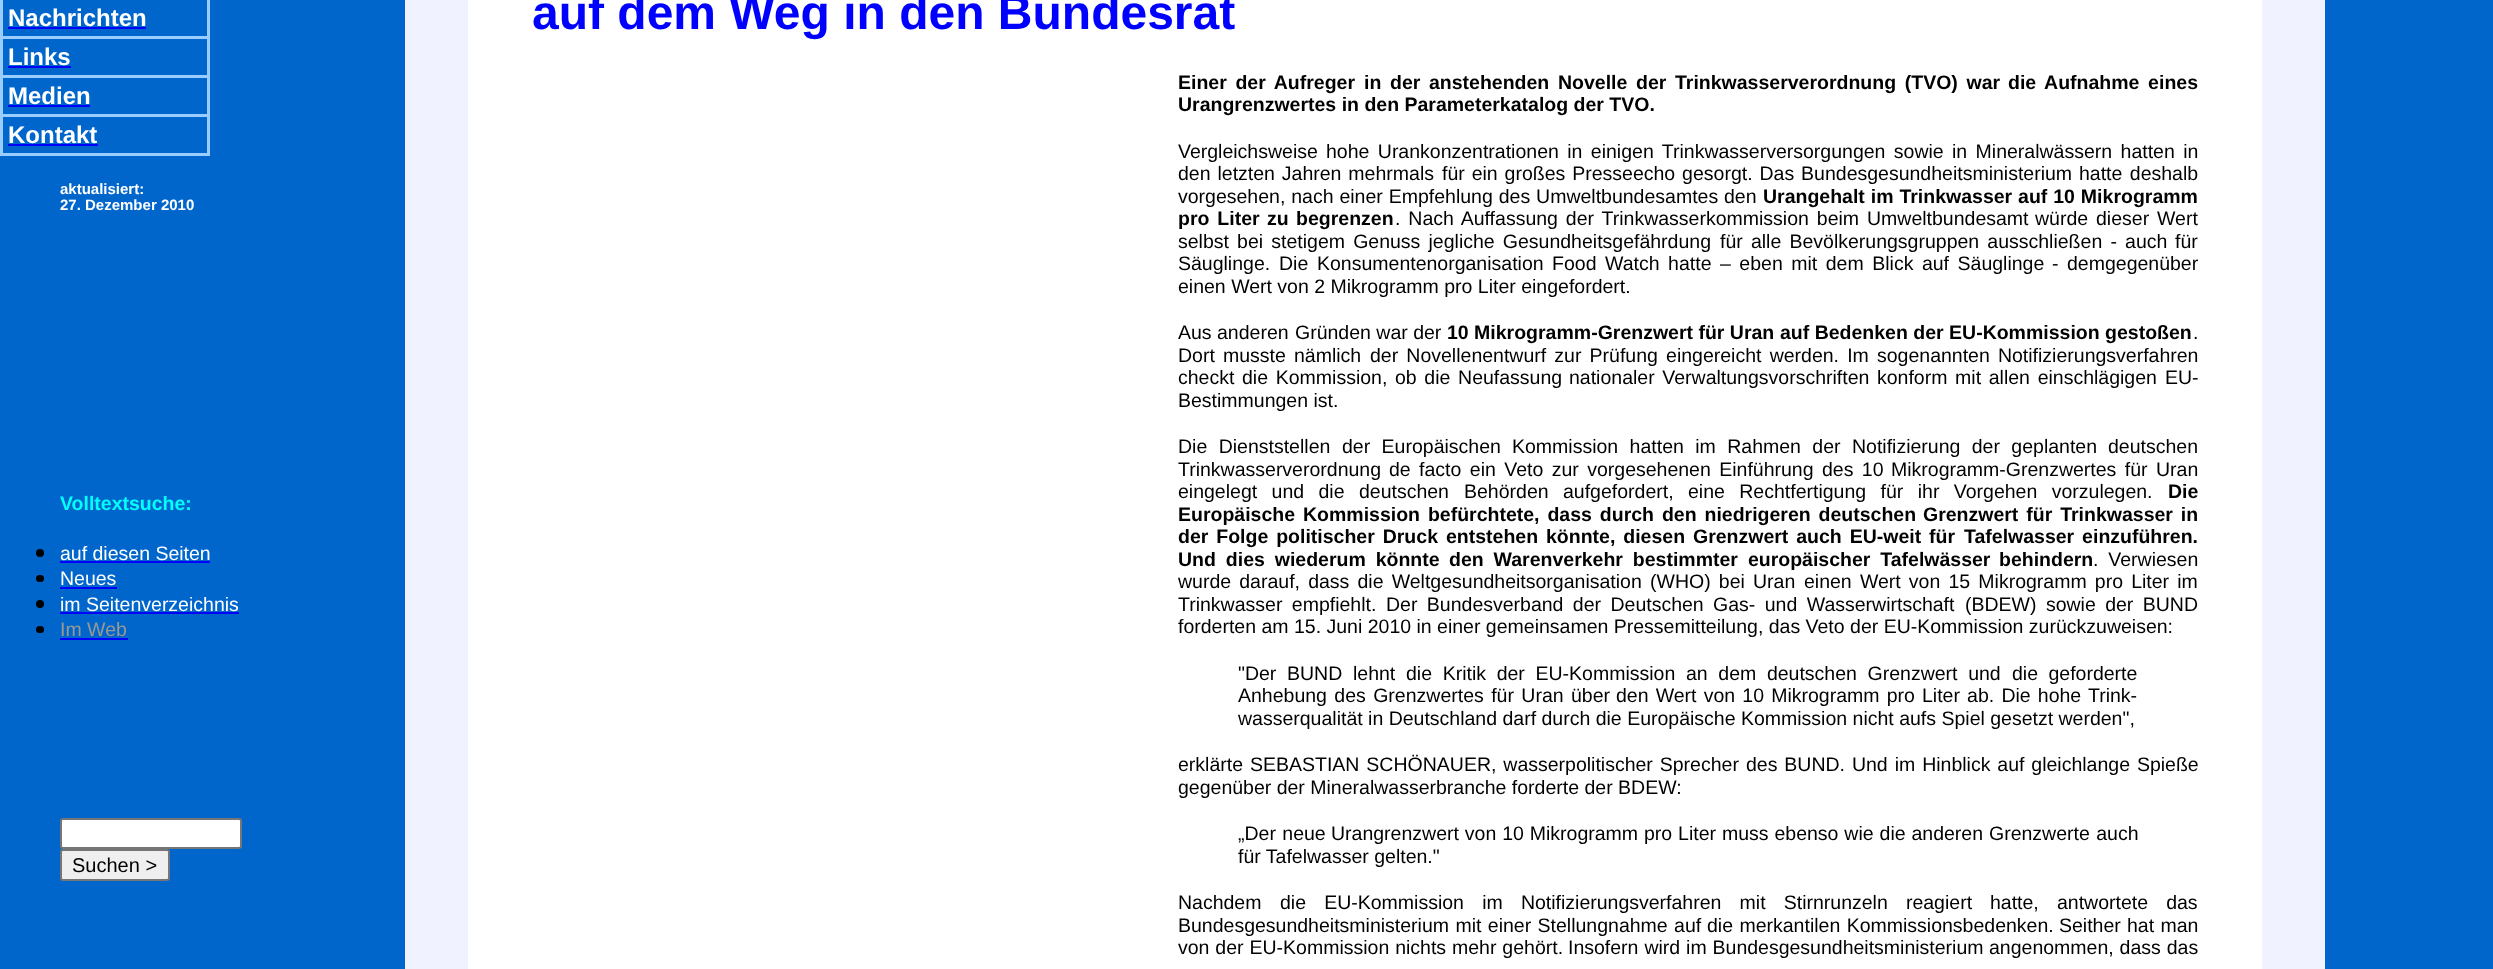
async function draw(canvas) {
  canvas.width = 2493
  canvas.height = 969
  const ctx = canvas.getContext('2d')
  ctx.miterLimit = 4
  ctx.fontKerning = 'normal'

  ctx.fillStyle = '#06c'
  ctx.fillRect(0, 0, 2493, 969)
  ctx.fillStyle = '#9cf'
  ctx.fillRect(0, 0, 210, 156)
  ctx.fillStyle = '#06c'
  ctx.fillRect(3, 0, 204, 36)
  ctx.font = 'bold 24px Liberation Sans'
  ctx.fillStyle = '#fff'
  ctx.fillText('Nachrichten', 8, 26)
  ctx.fillStyle = '#00f'
  ctx.fillRect(8, 27, 138, 2)
  ctx.fillStyle = '#06c'
  ctx.fillRect(3, 39, 204, 36)
  ctx.fillStyle = '#fff'
  ctx.fillText('Links', 8, 65)
  ctx.fillStyle = '#00f'
  ctx.fillRect(8, 66, 63, 2)
  ctx.fillStyle = '#06c'
  ctx.fillRect(3, 78, 204, 36)
  ctx.fillStyle = '#fff'
  ctx.fillText('Medien', 8, 104)
  ctx.fillStyle = '#00f'
  ctx.fillRect(8, 105, 82, 2)
  ctx.fillStyle = '#06c'
  ctx.fillRect(3, 117, 204, 36)
  ctx.fillStyle = '#fff'
  ctx.fillText('Kontakt', 8, 143)
  ctx.fillStyle = '#00f'
  ctx.fillRect(8, 144, 90, 2)
  ctx.font = 'bold 15px Liberation Sans'
  ctx.fillStyle = '#fff'
  ctx.fillText('aktualisiert:', 60, 194)
  ctx.fillText('27. Dezember 2010', 60, 210)
  ctx.font = 'bold 19.5px Liberation Sans'
  ctx.fillStyle = '#0ff'
  ctx.fillText('Volltextsuche:', 60, 510)
  ctx.fillStyle = '#000'
  ctx.beginPath()
  ctx.arc(40, 553, 4, 0, 2 * Math.PI)
  ctx.fill()
  ctx.font = '19.5px Liberation Sans'
  ctx.fillStyle = '#fff'
  ctx.fillText('auf diesen Seiten', 60, 560)
  ctx.fillStyle = '#00f'
  ctx.fillRect(60, 561, 150, 2)
  ctx.fillStyle = '#000'
  ctx.beginPath()
  ctx.roundRect(36, 575, 8, 7, 3.5)
  ctx.fill()
  ctx.fillStyle = '#fff'
  ctx.fillText('Neues', 60, 585)
  ctx.fillStyle = '#00f'
  ctx.fillRect(60, 587, 57, 2)
  ctx.fillStyle = '#000'
  ctx.beginPath()
  ctx.arc(40, 604, 4, 0, 2 * Math.PI)
  ctx.fill()
  ctx.fillStyle = '#fff'
  ctx.fillText('im Seitenverzeichnis', 60, 611)
  ctx.fillStyle = '#00f'
  ctx.fillRect(60, 612, 179, 2)
  ctx.fillStyle = '#000'
  ctx.beginPath()
  ctx.roundRect(36, 626, 8, 7, 3.5)
  ctx.fill()
  ctx.fillStyle = '#999990'
  ctx.fillText('Im Web', 60, 636)
  ctx.fillStyle = '#00f'
  ctx.fillRect(60, 638, 68, 2)
  ctx.fillStyle = '#fff'
  ctx.beginPath()
  ctx.roundRect(61, 819, 180, 29, 2)
  ctx.fill()
  ctx.strokeStyle = '#767676'
  ctx.lineWidth = 2
  ctx.stroke()
  ctx.fillStyle = '#efefef'
  ctx.beginPath()
  ctx.roundRect(61, 850, 108, 30, 2)
  ctx.fill()
  ctx.stroke()
  ctx.font = '20px Liberation Sans'
  ctx.fillStyle = '#000'
  ctx.fillText('Suchen >', 72, 872)
  ctx.fillStyle = '#f0f3ff'
  ctx.fillRect(405, 0, 1920, 969)
  ctx.fillStyle = '#fff'
  ctx.fillRect(468, 0, 1794, 969)
  ctx.font = 'bold 48px Liberation Sans'
  ctx.fillStyle = '#00f'
  ctx.fillText('auf dem Weg in den Bundesrat', 532, 29)
  ctx.wordSpacing = '3.25px'
  ctx.font = 'bold 19.5px Liberation Sans'
  ctx.fillStyle = '#000'
  ctx.fillText('Einer der Aufreger', 1178, 89)
  ctx.fillText('in der anstehenden Novelle der Trinkwasserverordnung (TVO) war', 1364, 89)
  ctx.fillText('die Aufnahme eines', 2008, 89)
  ctx.wordSpacing = '0px'
  ctx.fillText('Urangrenzwertes in den Parameterkatalog der TVO.', 1178, 111)
  ctx.font = '19.5px Liberation Sans'
  ctx.fillText('Vergleichsweise', 1178, 158)
  ctx.wordSpacing = '3px'
  ctx.fillText('hohe Urankonzentrationen in einigen Trinkwasserversorgungen sowie', 1326, 158)
  ctx.fillText('in Mineralwässern hatten in', 1952, 158)
  ctx.wordSpacing = '1.5px'
  ctx.fillText('den letzten Jahren mehrmals', 1178, 180)
  ctx.fillText('für ein großes Presseecho gesorgt. Das Bundesgesundheitsministerium', 1442, 180)
  ctx.wordSpacing = '2px'
  ctx.fillText('hatte deshalb', 2079, 180)
  ctx.wordSpacing = '0.5px'
  ctx.fillText('vorgesehen, nach einer Empfehlung des Umweltbundesamtes', 1178, 203)
  ctx.wordSpacing = '0px'
  ctx.fillText('den', 1724, 203)
  ctx.wordSpacing = '0.5px'
  ctx.font = 'bold 19.5px Liberation Sans'
  ctx.fillText('Urangehalt im Trinkwasser auf 10 Mikrogramm', 1763, 203)
  ctx.wordSpacing = '2.5px'
  ctx.fillText('pro Liter', 1178, 225)
  ctx.wordSpacing = '2px'
  ctx.fillText('zu begrenzen', 1267, 225)
  ctx.wordSpacing = '2.5px'
  ctx.font = '19.5px Liberation Sans'
  ctx.fillText('. Nach Auffassung der Trinkwasserkommission beim Umweltbundesamt', 1395, 225)
  ctx.fillText('würde dieser Wert', 2035, 225)
  ctx.wordSpacing = '2.75px'
  ctx.fillText('selbst bei stetigem Genuss jegliche Gesundheitsgefährdung', 1178, 248)
  ctx.fillText('für alle Bevölkerungsgruppen ausschließen - auch', 1720, 248)
  ctx.wordSpacing = '0px'
  ctx.fillText('für', 2175, 248)
  ctx.fillText('Säuglinge.', 1178, 270)
  ctx.fillText('Die', 1279, 270)
  ctx.wordSpacing = '3.1px'
  ctx.fillText('Konsumentenorganisation Food Watch hatte – eben mit dem Blick auf Säuglinge', 1317, 270)
  ctx.fillText('- demgegenüber', 2052, 270)
  ctx.wordSpacing = '0px'
  ctx.fillText('einen Wert von 2 Mikrogramm pro Liter eingefordert.', 1178, 293)
  ctx.fillText('Aus anderen', 1178, 339)
  ctx.fillText('Gründen war der', 1295, 339)
  ctx.font = 'bold 19.5px Liberation Sans'
  ctx.fillText('10 Mikrogramm-Grenzwert für Uran', 1447, 339)
  ctx.fillText('auf Bedenken der EU-Kommission gestoßen', 1780, 339)
  ctx.font = '19.5px Liberation Sans'
  ctx.fillText('.', 2193, 339)
  ctx.wordSpacing = '2.75px'
  ctx.fillText('Dort musste', 1178, 362)
  ctx.wordSpacing = '0px'
  ctx.fillText('nämlich', 1294, 362)
  ctx.wordSpacing = '2.75px'
  ctx.fillText('der Novellenentwurf zur Prüfung eingereicht werden. Im', 1370, 362)
  ctx.fillText('sogenannten Notifizierungsverfahren', 1877, 362)
  ctx.wordSpacing = '2.25px'
  ctx.fillText('checkt die Kommission,', 1178, 384)
  ctx.fillText('ob die Neufassung', 1395, 384)
  ctx.fillText('nationaler Verwaltungsvorschriften konform mit allen einschlägigen', 1569, 384)
  ctx.wordSpacing = '0px'
  ctx.fillText('EU-', 2165, 384)
  ctx.fillText('Bestimmungen ist.', 1178, 407)
  ctx.wordSpacing = '6px'
  ctx.fillText('Die Dienststellen', 1178, 453)
  ctx.fillText('der Europäischen', 1342, 453)
  ctx.fillText('Kommission hatten im Rahmen der Notifizierung der geplanten', 1512, 453)
  ctx.wordSpacing = '0px'
  ctx.fillText('deutschen', 2108, 453)
  ctx.fillText('Trinkwasserverordnung', 1178, 476)
  ctx.wordSpacing = '3px'
  ctx.fillText('de facto ein Veto zur vorgesehenen Einführung des 10', 1389, 476)
  ctx.fillText('Mikrogramm-Grenzwertes für Uran', 1891, 476)
  ctx.wordSpacing = '9px'
  ctx.fillText('eingelegt und die deutschen', 1178, 498)
  ctx.fillText('Behörden aufgefordert,', 1464, 498)
  ctx.fillText('eine Rechtfertigung für ihr Vorgehen vorzulegen.', 1688, 498)
  ctx.wordSpacing = '0px'
  ctx.font = 'bold 19.5px Liberation Sans'
  ctx.fillText('Die', 2168, 498)
  ctx.fillText('Europäische', 1178, 521)
  ctx.wordSpacing = '2.5px'
  ctx.fillText('Kommission befürchtete, dass durch den niedrigeren deutschen', 1303, 521)
  ctx.fillText('Grenzwert für Trinkwasser in', 1923, 521)
  ctx.fillText('der Folge politischer Druck', 1178, 543)
  ctx.fillText('entstehen könnte, diesen Grenzwert auch EU-weit für', 1446, 543)
  ctx.fillText('Tafelwasser einzuführen.', 1964, 543)
  ctx.wordSpacing = '4.5px'
  ctx.fillText('Und dies wiederum könnte', 1178, 566)
  ctx.fillText('den Warenverkehr bestimmter europäischer Tafelwässer', 1449, 566)
  ctx.wordSpacing = '0px'
  ctx.fillText('behindern', 1999, 566)
  ctx.wordSpacing = '4.5px'
  ctx.font = '19.5px Liberation Sans'
  ctx.fillText('. Verwiesen', 2093, 566)
  ctx.wordSpacing = '2.75px'
  ctx.fillText('wurde darauf, dass die Weltgesundheitsorganisation', 1178, 588)
  ctx.fillText('(WHO) bei Uran', 1650, 588)
  ctx.fillText('einen Wert von 15 Mikrogramm pro Liter im', 1804, 588)
  ctx.wordSpacing = '4px'
  ctx.fillText('Trinkwasser empfiehlt.', 1178, 611)
  ctx.fillText('Der Bundesverband der Deutschen Gas- und Wasserwirtschaft', 1386, 611)
  ctx.fillText('(BDEW) sowie der BUND', 1965, 611)
  ctx.wordSpacing = '0px'
  ctx.fillText('forderten am 15. Juni 2010 in einer gemeinsamen Pressemitteilung, das Veto der EU-Kommission zurückzuweisen:', 1178, 633)
  ctx.wordSpacing = '5.25px'
  ctx.fillText('"Der BUND', 1238, 680)
  ctx.fillText('lehnt die Kritik der EU-Kommission an dem deutschen Grenzwert und', 1353, 680)
  ctx.wordSpacing = '5px'
  ctx.fillText('die geforderte', 2012, 680)
  ctx.wordSpacing = '2px'
  ctx.fillText('Anhebung des Grenzwertes für Uran über', 1238, 702)
  ctx.wordSpacing = '1.75px'
  ctx.fillText('den Wert von 10 Mikrogramm pro Liter ab. Die hohe Trink-', 1616, 702)
  ctx.wordSpacing = '0px'
  ctx.fillText('wasserqualität in Deutschland darf durch die Europäische Kommission nicht aufs Spiel gesetzt werden",', 1238, 725)
  ctx.fillText('erklärte', 1178, 771)
  ctx.wordSpacing = '1.5px'
  ctx.fillText('SEBASTIAN SCHÖNAUER, wasserpolitischer Sprecher', 1250, 771)
  ctx.fillText('des BUND. Und im Hinblick auf gleichlange Spieße', 1746, 771)
  ctx.wordSpacing = '0px'
  ctx.fillText('gegenüber der Mineralwasserbranche forderte der BDEW:', 1178, 794)
  ctx.wordSpacing = '1px'
  ctx.fillText('„Der neue', 1238, 840)
  ctx.wordSpacing = '0.5px'
  ctx.fillText('Urangrenzwert von 10 Mikrogramm pro Liter muss ebenso wie die anderen', 1331, 840)
  ctx.wordSpacing = '1px'
  ctx.fillText('Grenzwerte auch', 1989, 840)
  ctx.wordSpacing = '0px'
  ctx.fillText('für Tafelwasser gelten."', 1238, 863)
  ctx.fillText('Nachdem', 1178, 909)
  ctx.wordSpacing = '12.75px'
  ctx.fillText('die EU-Kommission im Notifizierungsverfahren mit Stirnrunzeln reagiert', 1280, 909)
  ctx.fillText('hatte, antwortete das', 1990, 909)
  ctx.wordSpacing = '1px'
  ctx.fillText('Bundesgesundheitsministerium mit einer Stellungnahme auf', 1178, 932)
  ctx.fillText('die merkantilen Kommissionsbedenken.', 1707, 932)
  ctx.wordSpacing = '0px'
  ctx.fillText('Seither', 2059, 932)
  ctx.wordSpacing = '1px'
  ctx.fillText('hat man', 2127, 932)
  ctx.wordSpacing = '0.5px'
  ctx.fillText('von der EU-Kommission nichts mehr gehört.', 1178, 954)
  ctx.fillText('Insofern wird im Bundesgesundheitsministerium', 1568, 954)
  ctx.fillText('angenommen, dass das', 1989, 954)
}

draw(document.querySelector('canvas'))
